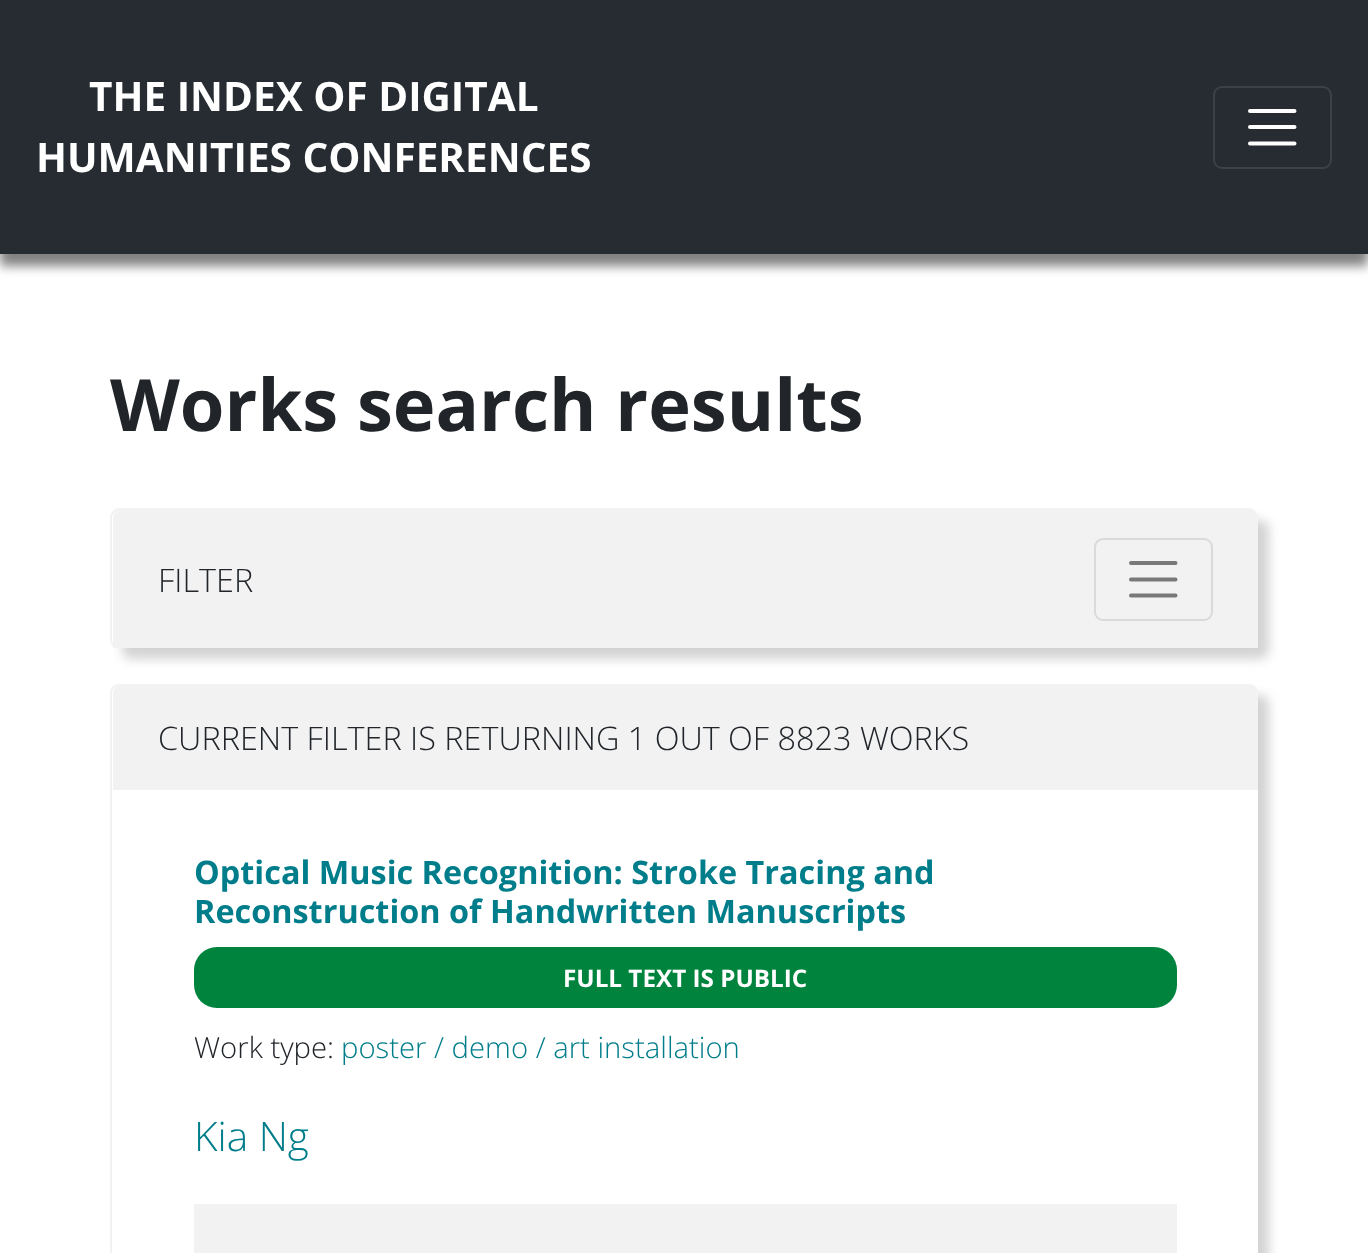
async function draw(canvas) {
  canvas.width = 1368
  canvas.height = 1253
  const ctx = canvas.getContext('2d')
  ctx.miterLimit = 4
  ctx.fontKerning = 'normal'

  ctx.fillStyle = '#fff'
  ctx.fillRect(0, 0, 1368, 1253)
  ctx.fillStyle = '#808080'
  ctx.filter = 'blur(5.5px)'
  ctx.beginPath()
  ctx.rect(0, 11, 1368, 255)
  ctx.fill()
  ctx.filter = 'none'
  ctx.fillStyle = '#262c31'
  ctx.fillRect(0, 0, 1368, 254)
  ctx.font = 'bold 40.5px Open Sans'
  ctx.fillStyle = '#fff'
  ctx.fillText('THE INDEX OF DIGITAL', 89, 111)
  ctx.fillText('HUMANITIES CONFERENCES', 36, 172)
  ctx.beginPath()
  ctx.roundRect(1214, 87, 117, 81, 8)
  ctx.strokeStyle = '#3c4146'
  ctx.lineWidth = 2
  ctx.stroke()
  ctx.beginPath()
  ctx.moveTo(1250, 111)
  ctx.lineTo(1294.5, 111)
  ctx.moveTo(1250, 127)
  ctx.lineTo(1294.5, 127)
  ctx.moveTo(1250, 143.5)
  ctx.lineTo(1294.5, 143.5)
  ctx.strokeStyle = '#fff'
  ctx.lineWidth = 4
  ctx.lineCap = 'round'
  ctx.stroke()
  ctx.font = 'bold 72.25px Open Sans'
  ctx.fillStyle = '#212529'
  ctx.fillText('Works search results', 110, 431)
  ctx.fillStyle = '#d3d3d3'
  ctx.filter = 'blur(5.5px)'
  ctx.beginPath()
  ctx.roundRect(122, 520, 1147, 139, 9)
  ctx.fill()
  ctx.filter = 'none'
  ctx.fillStyle = '#fff'
  ctx.beginPath()
  ctx.roundRect(110, 509, 1148, 139, 9)
  ctx.fill()
  ctx.fillStyle = '#f2f2f2'
  ctx.beginPath()
  ctx.moveTo(119, 508)
  ctx.lineTo(1249, 508)
  ctx.bezierCurveTo(1254, 508, 1258, 513, 1258, 518)
  ctx.lineTo(1258, 639)
  ctx.bezierCurveTo(1258, 644, 1254, 648, 1249, 648)
  ctx.lineTo(119, 648)
  ctx.bezierCurveTo(114, 648, 110, 644, 110, 639)
  ctx.lineTo(110, 518)
  ctx.bezierCurveTo(110, 513, 114, 508, 119, 508)
  ctx.closePath()
  ctx.moveTo(119, 511)
  ctx.lineTo(1249, 511)
  ctx.bezierCurveTo(1254, 511, 1258, 514, 1258, 518)
  ctx.lineTo(1258, 639)
  ctx.bezierCurveTo(1258, 644, 1254, 648, 1249, 648)
  ctx.lineTo(119, 648)
  ctx.bezierCurveTo(116, 648, 112, 644, 112, 639)
  ctx.lineTo(112, 518)
  ctx.bezierCurveTo(112, 514, 116, 511, 119, 511)
  ctx.closePath()
  ctx.fill('evenodd')
  ctx.beginPath()
  ctx.roundRect(113, 511, 1145, 137, [7, 7, 0, 0])
  ctx.fill()
  ctx.font = '300 32.4px Open Sans'
  ctx.fillStyle = '#212529'
  ctx.fillText('FILTER', 158, 592)
  ctx.beginPath()
  ctx.roundRect(1095, 539, 117, 81, 8)
  ctx.strokeStyle = '#dadada'
  ctx.lineWidth = 2
  ctx.stroke()
  ctx.beginPath()
  ctx.moveTo(1131, 563)
  ctx.lineTo(1175.5, 563)
  ctx.moveTo(1131, 579.5)
  ctx.lineTo(1175.5, 579.5)
  ctx.moveTo(1131, 595.5)
  ctx.lineTo(1175.5, 595.5)
  ctx.strokeStyle = '#797979'
  ctx.lineWidth = 4
  ctx.stroke()
  ctx.fillStyle = '#d3d3d3'
  ctx.filter = 'blur(5.5px)'
  ctx.beginPath()
  ctx.roundRect(122, 695, 1147, 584, 9)
  ctx.fill()
  ctx.filter = 'none'
  ctx.fillStyle = '#fff'
  ctx.beginPath()
  ctx.roundRect(110, 684, 1148, 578, 9)
  ctx.fill()
  ctx.fillStyle = '#f2f2f2'
  ctx.beginPath()
  ctx.moveTo(119, 684)
  ctx.lineTo(1249, 684)
  ctx.bezierCurveTo(1254, 684, 1258, 688, 1258, 693)
  ctx.lineTo(1258, 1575)
  ctx.bezierCurveTo(1258, 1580, 1254, 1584, 1249, 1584)
  ctx.lineTo(119, 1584)
  ctx.bezierCurveTo(114, 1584, 110, 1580, 110, 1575)
  ctx.lineTo(110, 693)
  ctx.bezierCurveTo(110, 688, 114, 684, 119, 684)
  ctx.closePath()
  ctx.moveTo(119, 686)
  ctx.lineTo(1249, 686)
  ctx.bezierCurveTo(1254, 686, 1258, 689, 1258, 693)
  ctx.lineTo(1258, 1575)
  ctx.bezierCurveTo(1258, 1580, 1254, 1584, 1249, 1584)
  ctx.lineTo(119, 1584)
  ctx.bezierCurveTo(116, 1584, 112, 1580, 112, 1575)
  ctx.lineTo(112, 693)
  ctx.bezierCurveTo(112, 689, 116, 686, 119, 686)
  ctx.closePath()
  ctx.fill('evenodd')
  ctx.beginPath()
  ctx.roundRect(113, 686, 1145, 104, [7, 7, 0, 0])
  ctx.fill()
  ctx.fillStyle = '#212529'
  ctx.fillText('CURRENT FILTER IS RETURNING 1 OUT OF 8823 WORKS', 158, 750)
  ctx.font = 'bold 32.4px Open Sans'
  ctx.fillStyle = '#007d8a'
  ctx.fillText('Optical Music Recognition: Stroke Tracing and', 194, 884)
  ctx.fillText('Reconstruction of Handwritten Manuscripts', 194, 923)
  ctx.fillStyle = '#00843d'
  ctx.beginPath()
  ctx.roundRect(194, 947, 983, 61, 23)
  ctx.fill()
  ctx.font = 'bold 24.25px Open Sans'
  ctx.fillStyle = '#fff'
  ctx.fillText('FULL TEXT IS PUBLIC', 563, 987)
  ctx.font = '300 29.25px Open Sans'
  ctx.fillStyle = '#212529'
  ctx.fillText('Work type:', 194, 1058)
  ctx.fillStyle = '#007d8a'
  ctx.fillText('poster / demo / art installation', 341, 1058)
  ctx.font = '300 40.5px Open Sans'
  ctx.fillText('Kia Ng', 194, 1151)
  ctx.fillStyle = '#f2f2f2'
  ctx.fillRect(194, 1204, 983, 49)
}

draw(document.querySelector('canvas'))
